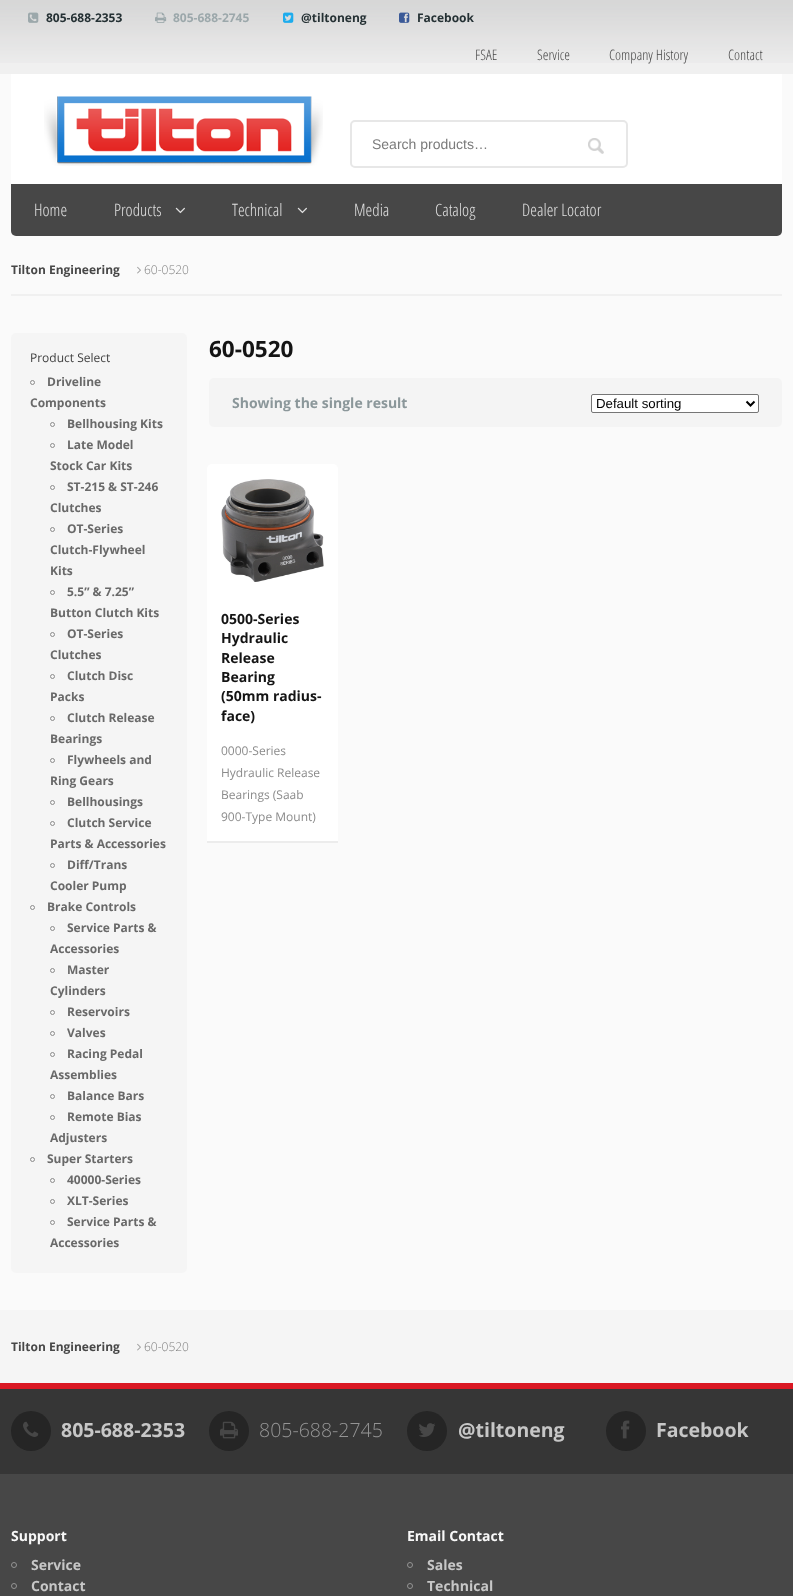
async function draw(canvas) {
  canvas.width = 793
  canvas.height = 1596
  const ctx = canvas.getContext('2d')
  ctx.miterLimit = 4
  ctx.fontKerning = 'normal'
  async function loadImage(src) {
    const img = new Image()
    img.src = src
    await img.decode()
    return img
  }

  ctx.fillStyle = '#fafafa'
  ctx.fillRect(0, 0, 793, 1596)
  ctx.fillStyle = '#f0f0f0'
  ctx.fillRect(0, 63, 793, 11)
  ctx.drawImage(await loadImage('image0.png'), 0, 0, 793, 63)
  ctx.drawImage(await loadImage('image1.png'), 28, 12, 11, 11)
  ctx.font = 'bold 12px Open Sans'
  ctx.fillStyle = '#253134'
  ctx.fillText('805-688-2353', 46, 22)
  ctx.drawImage(await loadImage('image2.png'), 155, 12, 12, 11)
  ctx.fillStyle = '#9ca8ab'
  ctx.fillText('805-688-2745', 173, 22)
  ctx.drawImage(await loadImage('image3.png'), 283, 12, 11, 11)
  ctx.fillStyle = '#253134'
  ctx.fillText('@tiltoneng', 301, 22)
  ctx.drawImage(await loadImage('image4.png'), 399, 12, 11, 11)
  ctx.fillText('Facebook', 417, 22)
  ctx.font = '300 14.5px Open Sans Condensed'
  ctx.fillStyle = '#474747'
  ctx.fillText('FSAE', 475, 60)
  ctx.fillText('Service', 537, 60)
  ctx.fillText('Company History', 609, 60)
  ctx.fillText('Contact', 728, 60)
  ctx.fillStyle = '#fff'
  ctx.fillRect(11, 74, 771, 110)
  ctx.drawImage(await loadImage('image5.png'), 44, 96, 279, 70)
  ctx.beginPath()
  ctx.roundRect(351, 121, 276, 46, 4)
  ctx.strokeStyle = '#e7e7e7'
  ctx.lineWidth = 2
  ctx.stroke()
  ctx.font = '14px Liberation Sans'
  ctx.fillStyle = '#7a7a7a'
  ctx.fillText('Search products…', 372, 149)
  ctx.drawImage(await loadImage('image6.png'), 588, 138, 16, 16)
  ctx.fillStyle = '#474747'
  ctx.beginPath()
  ctx.roundRect(11, 184, 771, 52, [0, 0, 5, 5])
  ctx.fill()
  ctx.font = '300 17px Open Sans Condensed'
  ctx.fillStyle = '#e0e0e0'
  ctx.fillText('Home', 34, 216)
  ctx.fillText('Products', 114, 216)
  ctx.drawImage(await loadImage('image7.png'), 175, 207, 10, 7)
  ctx.fillText('Technical', 232, 216)
  ctx.drawImage(await loadImage('image7.png'), 297, 207, 10, 7)
  ctx.fillText('Media', 354, 216)
  ctx.fillText('Catalog', 435, 216)
  ctx.fillText('Dealer Locator', 522, 216)
  ctx.fillStyle = '#f0f0f0'
  ctx.fillRect(11, 294, 771, 2)
  ctx.font = 'bold 12px Open Sans'
  ctx.fillStyle = '#474747'
  ctx.fillText('Tilton Engineering', 11, 274)
  ctx.drawImage(await loadImage('image8.png'), 137, 266, 4, 8)
  ctx.font = '300 12px Open Sans'
  ctx.fillStyle = '#7a7a7a'
  ctx.fillText('60-0520', 144, 274)
  ctx.fillStyle = '#f5f5f5'
  ctx.beginPath()
  ctx.roundRect(11, 333, 176, 940, 5)
  ctx.fill()
  ctx.font = '12px Open Sans'
  ctx.fillStyle = '#3e3e3e'
  ctx.fillText('Product Select', 30, 362)
  ctx.beginPath()
  ctx.arc(32.5, 382.5, 2, 0, 2 * Math.PI)
  ctx.strokeStyle = '#8b8b8b'
  ctx.lineWidth = 1
  ctx.stroke()
  ctx.font = 'bold 12px Open Sans'
  ctx.fillStyle = '#696969'
  ctx.fillText('Driveline', 47, 386)
  ctx.fillText('Components', 30, 407)
  ctx.beginPath()
  ctx.arc(52.5, 424.5, 2, 0, 2 * Math.PI)
  ctx.stroke()
  ctx.fillText('Bellhousing Kits', 67, 428)
  ctx.beginPath()
  ctx.arc(52.5, 445.5, 2, 0, 2 * Math.PI)
  ctx.stroke()
  ctx.fillText('Late Model', 67, 449)
  ctx.fillText('Stock Car Kits', 50, 470)
  ctx.beginPath()
  ctx.arc(52.5, 487.5, 2, 0, 2 * Math.PI)
  ctx.stroke()
  ctx.fillText('ST-215 & ST-246', 67, 491)
  ctx.fillText('Clutches', 50, 512)
  ctx.beginPath()
  ctx.arc(52.5, 529.5, 2, 0, 2 * Math.PI)
  ctx.stroke()
  ctx.fillText('OT-Series', 67, 533)
  ctx.fillText('Clutch-Flywheel', 50, 554)
  ctx.fillText('Kits', 50, 575)
  ctx.beginPath()
  ctx.arc(52.5, 592.5, 2, 0, 2 * Math.PI)
  ctx.stroke()
  ctx.fillText('5.5” & 7.25”', 67, 596)
  ctx.fillText('Button Clutch Kits', 50, 617)
  ctx.beginPath()
  ctx.arc(52.5, 634.5, 2, 0, 2 * Math.PI)
  ctx.stroke()
  ctx.fillText('OT-Series', 67, 638)
  ctx.fillText('Clutches', 50, 659)
  ctx.beginPath()
  ctx.arc(52.5, 676.5, 2, 0, 2 * Math.PI)
  ctx.stroke()
  ctx.fillText('Clutch Disc', 67, 680)
  ctx.fillText('Packs', 50, 701)
  ctx.beginPath()
  ctx.arc(52.5, 718.5, 2, 0, 2 * Math.PI)
  ctx.stroke()
  ctx.fillText('Clutch Release', 67, 722)
  ctx.fillText('Bearings', 50, 743)
  ctx.beginPath()
  ctx.arc(52.5, 760.5, 2, 0, 2 * Math.PI)
  ctx.stroke()
  ctx.fillText('Flywheels and', 67, 764)
  ctx.fillText('Ring Gears', 50, 785)
  ctx.beginPath()
  ctx.arc(52.5, 802.5, 2, 0, 2 * Math.PI)
  ctx.stroke()
  ctx.fillText('Bellhousings', 67, 806)
  ctx.beginPath()
  ctx.arc(52.5, 823.5, 2, 0, 2 * Math.PI)
  ctx.stroke()
  ctx.fillText('Clutch Service', 67, 827)
  ctx.fillText('Parts & Accessories', 50, 848)
  ctx.beginPath()
  ctx.arc(52.5, 865.5, 2, 0, 2 * Math.PI)
  ctx.stroke()
  ctx.fillText('Diff/Trans', 67, 869)
  ctx.fillText('Cooler Pump', 50, 890)
  ctx.beginPath()
  ctx.arc(32.5, 907.5, 2, 0, 2 * Math.PI)
  ctx.stroke()
  ctx.fillText('Brake Controls', 47, 911)
  ctx.beginPath()
  ctx.arc(52.5, 928.5, 2, 0, 2 * Math.PI)
  ctx.stroke()
  ctx.fillText('Service Parts &', 67, 932)
  ctx.fillText('Accessories', 50, 953)
  ctx.beginPath()
  ctx.arc(52.5, 970.5, 2, 0, 2 * Math.PI)
  ctx.stroke()
  ctx.fillText('Master', 67, 974)
  ctx.fillText('Cylinders', 50, 995)
  ctx.beginPath()
  ctx.arc(52.5, 1012.5, 2, 0, 2 * Math.PI)
  ctx.stroke()
  ctx.fillText('Reservoirs', 67, 1016)
  ctx.beginPath()
  ctx.arc(52.5, 1033.5, 2, 0, 2 * Math.PI)
  ctx.stroke()
  ctx.fillText('Valves', 67, 1037)
  ctx.beginPath()
  ctx.arc(52.5, 1054.5, 2, 0, 2 * Math.PI)
  ctx.stroke()
  ctx.fillText('Racing Pedal', 67, 1058)
  ctx.fillText('Assemblies', 50, 1079)
  ctx.beginPath()
  ctx.arc(52.5, 1096.5, 2, 0, 2 * Math.PI)
  ctx.stroke()
  ctx.fillText('Balance Bars', 67, 1100)
  ctx.beginPath()
  ctx.arc(52.5, 1117.5, 2, 0, 2 * Math.PI)
  ctx.stroke()
  ctx.fillText('Remote Bias', 67, 1121)
  ctx.fillText('Adjusters', 50, 1142)
  ctx.beginPath()
  ctx.arc(32.5, 1159.5, 2, 0, 2 * Math.PI)
  ctx.stroke()
  ctx.fillText('Super Starters', 47, 1163)
  ctx.beginPath()
  ctx.arc(52.5, 1180.5, 2, 0, 2 * Math.PI)
  ctx.stroke()
  ctx.fillText('40000-Series', 67, 1184)
  ctx.beginPath()
  ctx.arc(52.5, 1201.5, 2, 0, 2 * Math.PI)
  ctx.stroke()
  ctx.fillText('XLT-Series', 67, 1205)
  ctx.beginPath()
  ctx.arc(52.5, 1222.5, 2, 0, 2 * Math.PI)
  ctx.stroke()
  ctx.fillText('Service Parts &', 67, 1226)
  ctx.fillText('Accessories', 50, 1247)
  ctx.font = 'bold 22.5px Open Sans'
  ctx.fillStyle = '#141414'
  ctx.fillText('60-0520', 209, 357)
  ctx.fillStyle = '#f4f4f4'
  ctx.beginPath()
  ctx.roundRect(209, 378, 287, 49, [5, 0, 0, 5])
  ctx.fill()
  ctx.font = 'bold 14px Open Sans'
  ctx.fillStyle = '#8b979a'
  ctx.fillText('Showing the single result', 232, 408)
  ctx.fillStyle = '#f4f4f4'
  ctx.beginPath()
  ctx.roundRect(496, 378, 286, 49, [0, 5, 5, 0])
  ctx.fill()
  ctx.fillStyle = '#fff'
  ctx.beginPath()
  ctx.roundRect(591.5, 394.5, 167, 18, 1.5)
  ctx.fill()
  ctx.strokeStyle = '#767676'
  ctx.stroke()
  ctx.beginPath()
  ctx.moveTo(746.5, 401.5)
  ctx.lineTo(750.5, 405.5)
  ctx.lineTo(754.5, 401.5)
  ctx.strokeStyle = '#000'
  ctx.lineWidth = 2
  ctx.stroke()
  ctx.font = '13.25px Liberation Sans'
  ctx.fillStyle = '#000'
  ctx.fillText('Default sorting', 596, 408)
  ctx.fillStyle = '#fff'
  ctx.beginPath()
  ctx.roundRect(207, 464, 131, 131, [5, 5, 0, 0])
  ctx.fill()
  ctx.drawImage(await loadImage('image9.png'), 221, 479, 103, 103)
  ctx.fillRect(207, 595, 131, 246)
  ctx.font = 'bold 14px Open Sans'
  ctx.fillStyle = '#141414'
  ctx.fillText('0500-Series', 221, 624)
  ctx.fillText('Hydraulic', 221, 643)
  ctx.fillText('Release', 221, 663)
  ctx.fillText('Bearing', 221, 682)
  ctx.fillText('(50mm radius-', 221, 701)
  ctx.fillText('face)', 221, 721)
  ctx.fillStyle = '#ececec'
  ctx.fillRect(207, 841, 131, 2)
  ctx.font = '12px Open Sans'
  ctx.fillStyle = '#8b8b8b'
  ctx.fillText('0000-Series', 221, 755)
  ctx.fillText('Hydraulic Release', 221, 777)
  ctx.fillText('Bearings (Saab', 221, 799)
  ctx.fillText('900-Type Mount)', 221, 821)
  ctx.fillStyle = '#f5f5f5'
  ctx.fillRect(0, 1310, 793, 73)
  ctx.font = 'bold 12px Open Sans'
  ctx.fillStyle = '#474747'
  ctx.fillText('Tilton Engineering', 11, 1351)
  ctx.drawImage(await loadImage('image10.png'), 137, 1343, 4, 8)
  ctx.font = '300 12px Open Sans'
  ctx.fillStyle = '#7a7a7a'
  ctx.fillText('60-0520', 144, 1351)
  ctx.fillStyle = '#363636'
  ctx.fillRect(0, 1389, 793, 85)
  ctx.fillStyle = '#d91823'
  ctx.fillRect(0, 1383, 793, 6)
  ctx.fillStyle = '#252525'
  ctx.beginPath()
  ctx.arc(31, 1431, 20, 0, 2 * Math.PI)
  ctx.fill()
  ctx.drawImage(await loadImage('image11.png'), 23, 1421, 16, 16)
  ctx.font = 'bold 19.5px Open Sans'
  ctx.fillStyle = '#c7c7c7'
  ctx.fillText('805-688-2353', 61, 1437)
  ctx.fillStyle = '#252525'
  ctx.beginPath()
  ctx.arc(229, 1431, 20, 0, 2 * Math.PI)
  ctx.fill()
  ctx.drawImage(await loadImage('image12.png'), 220, 1421, 18, 18)
  ctx.font = '300 19.5px Open Sans'
  ctx.fillStyle = '#949494'
  ctx.fillText('805-688-2745', 259, 1437)
  ctx.fillStyle = '#252525'
  ctx.beginPath()
  ctx.arc(427, 1431, 20, 0, 2 * Math.PI)
  ctx.fill()
  ctx.drawImage(await loadImage('image13.png'), 419, 1423, 16, 14)
  ctx.font = 'bold 19.5px Open Sans'
  ctx.fillStyle = '#c7c7c7'
  ctx.fillText('@tiltoneng', 458, 1437)
  ctx.fillStyle = '#252525'
  ctx.beginPath()
  ctx.arc(626, 1431, 20, 0, 2 * Math.PI)
  ctx.fill()
  ctx.drawImage(await loadImage('image14.png'), 621, 1420, 9, 19)
  ctx.fillStyle = '#c7c7c7'
  ctx.fillText('Facebook', 656, 1437)
  ctx.fillStyle = '#474747'
  ctx.fillRect(0, 1474, 793, 122)
  ctx.font = 'bold 14px Open Sans'
  ctx.fillStyle = '#f8f8f8'
  ctx.fillText('Support', 11, 1541)
  ctx.beginPath()
  ctx.arc(14, 1565, 2.5, 0, 2 * Math.PI)
  ctx.strokeStyle = '#949494'
  ctx.lineWidth = 1
  ctx.stroke()
  ctx.fillStyle = '#c7c7c7'
  ctx.fillText('Service', 31, 1570)
  ctx.beginPath()
  ctx.arc(14, 1586, 2.5, 0, 2 * Math.PI)
  ctx.stroke()
  ctx.fillText('Contact', 31, 1591)
  ctx.fillStyle = '#f8f8f8'
  ctx.fillText('Email Contact', 407, 1541)
  ctx.beginPath()
  ctx.arc(410, 1565, 2.5, 0, 2 * Math.PI)
  ctx.stroke()
  ctx.fillStyle = '#c7c7c7'
  ctx.fillText('Sales', 427, 1570)
  ctx.beginPath()
  ctx.arc(410, 1586, 2.5, 0, 2 * Math.PI)
  ctx.stroke()
  ctx.fillText('Technical', 427, 1591)
}

draw(document.querySelector('canvas'))
